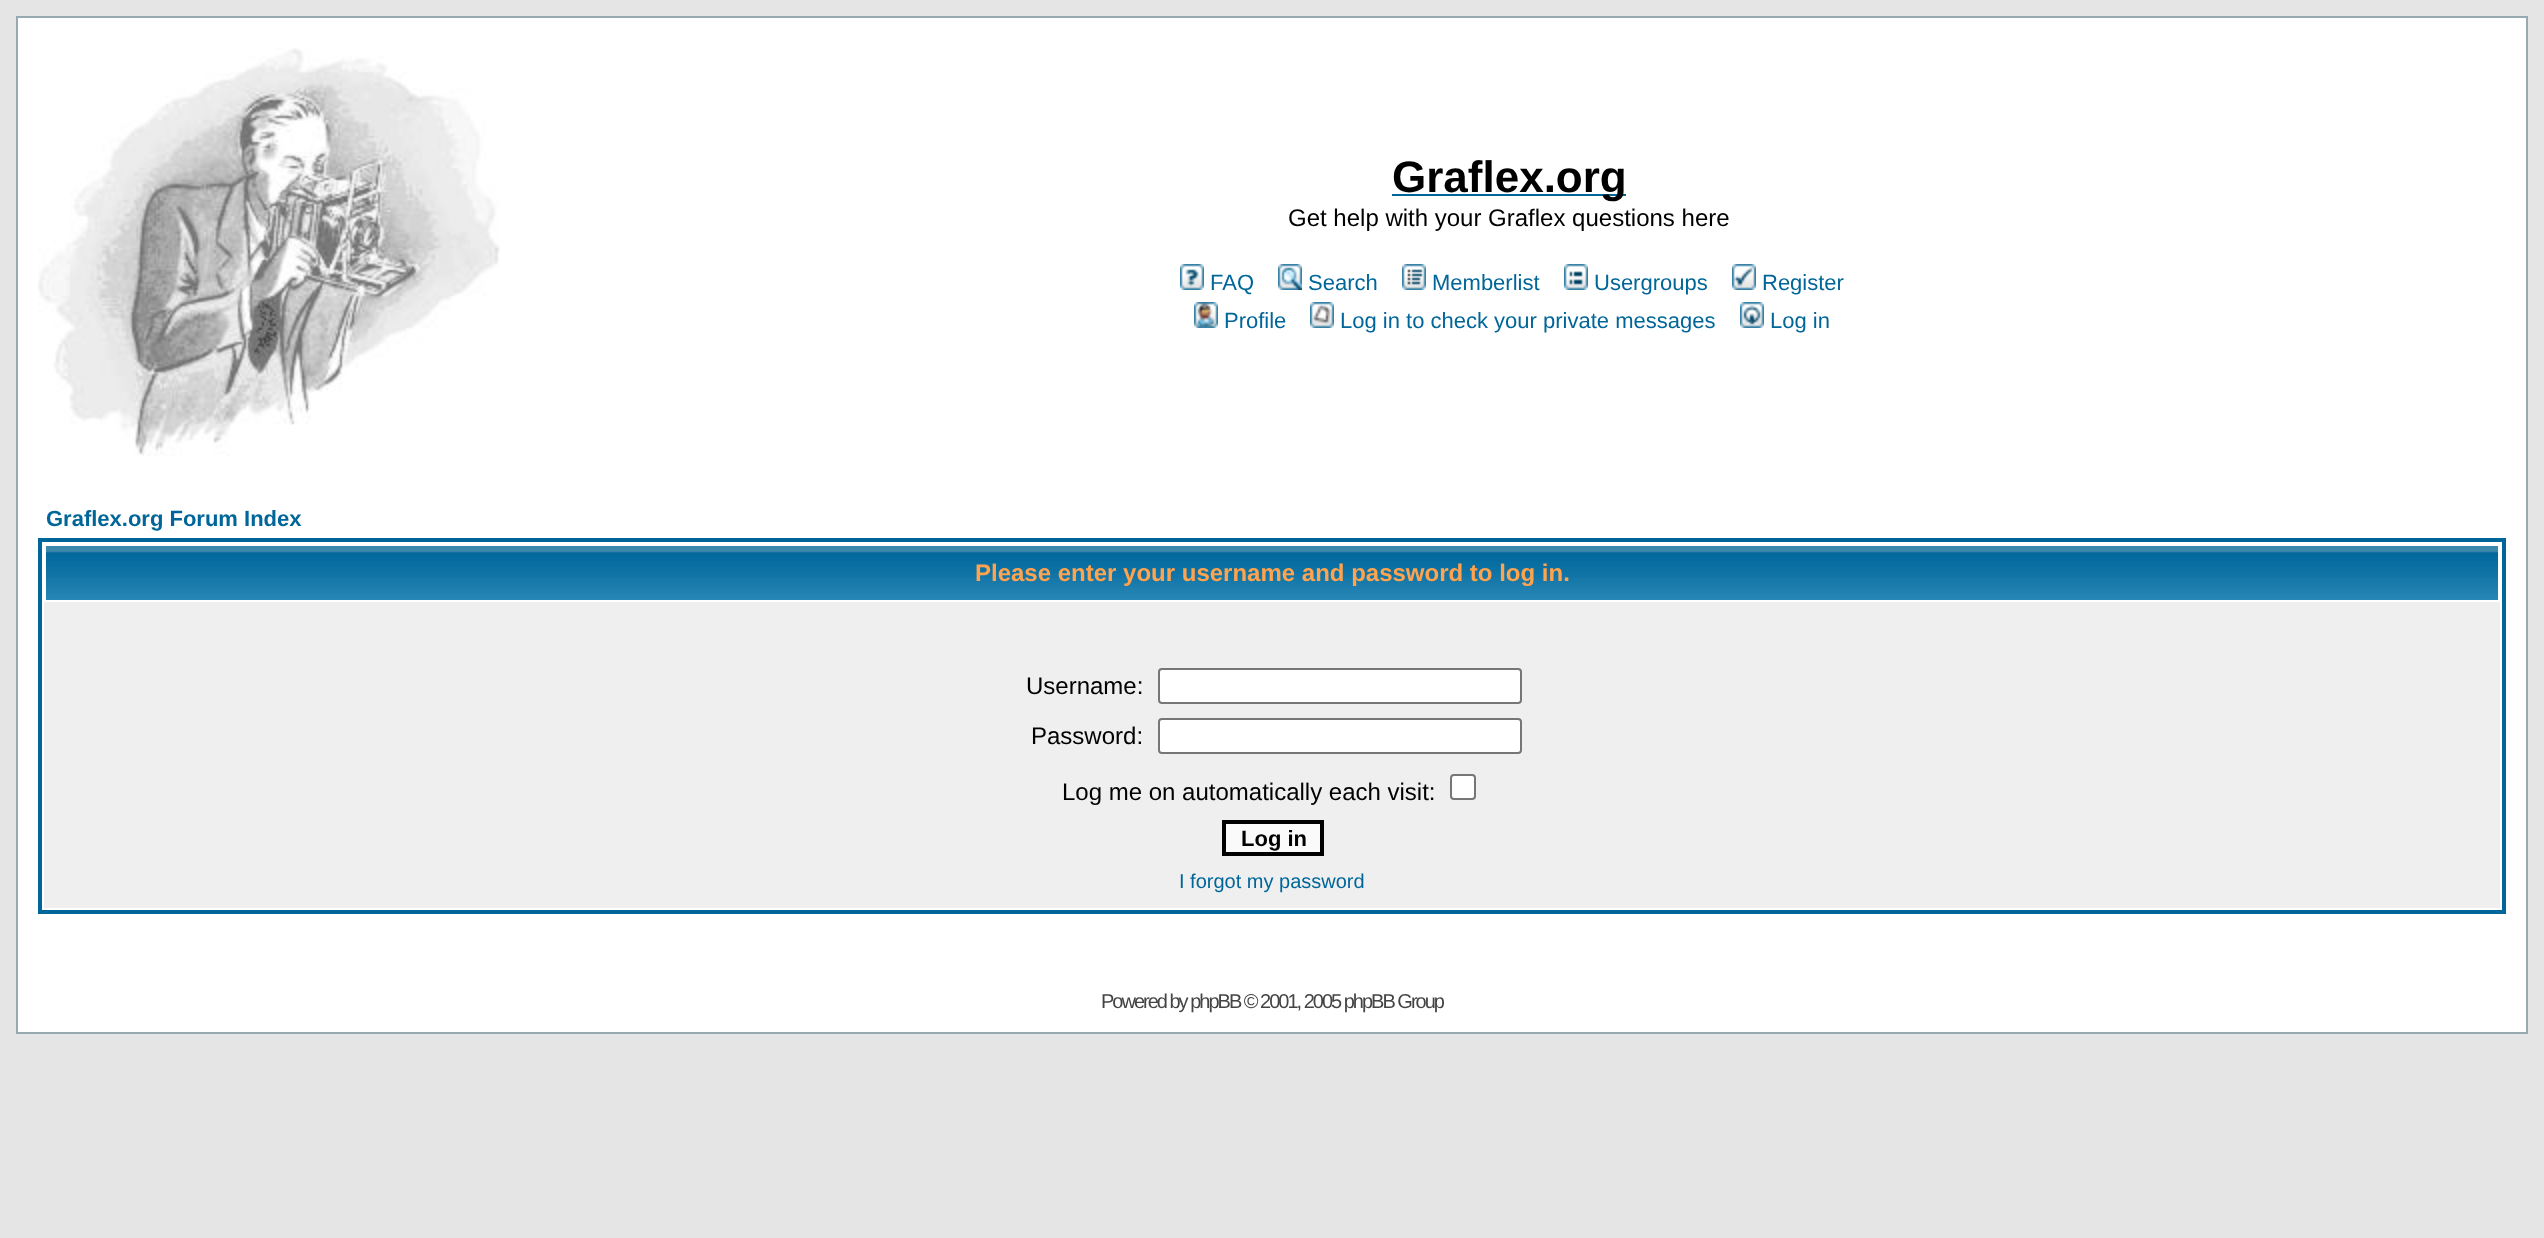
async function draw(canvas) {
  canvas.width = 2544
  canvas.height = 1238
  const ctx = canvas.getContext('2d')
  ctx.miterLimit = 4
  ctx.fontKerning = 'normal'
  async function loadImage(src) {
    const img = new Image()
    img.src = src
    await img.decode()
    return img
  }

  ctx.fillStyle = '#e5e5e5'
  ctx.fillRect(0, 0, 2544, 1238)
  ctx.fillStyle = '#fff'
  ctx.beginPath()
  ctx.rect(17, 17, 2510, 1016)
  ctx.fill()
  ctx.strokeStyle = '#98aab1'
  ctx.lineWidth = 2
  ctx.stroke()
  ctx.drawImage(await loadImage('image0.png'), 38, 48, 462, 408)
  ctx.fillStyle = '#069'
  ctx.fillRect(1392, 194, 234, 2)
  ctx.font = 'bold 44px Liberation Sans'
  ctx.fillStyle = '#000'
  ctx.fillText('Graflex.org', 1392, 192)
  ctx.font = '24px Liberation Sans'
  ctx.fillText('Get help with your Graflex questions here', 1288, 226)
  ctx.drawImage(await loadImage('image1.png'), 1180, 264, 24, 26)
  ctx.font = '22px Liberation Sans'
  ctx.fillStyle = '#069'
  ctx.fillText('FAQ', 1210, 290)
  ctx.drawImage(await loadImage('image2.png'), 1278, 264, 24, 26)
  ctx.fillText('Search', 1308, 290)
  ctx.drawImage(await loadImage('image3.png'), 1402, 264, 24, 26)
  ctx.fillText('Memberlist', 1432, 290)
  ctx.drawImage(await loadImage('image4.png'), 1564, 264, 24, 26)
  ctx.fillText('Usergroups', 1594, 290)
  ctx.drawImage(await loadImage('image5.png'), 1732, 264, 24, 26)
  ctx.fillText('Register', 1762, 290)
  ctx.drawImage(await loadImage('image6.png'), 1194, 302, 24, 26)
  ctx.fillText('Profile', 1224, 328)
  ctx.drawImage(await loadImage('image7.png'), 1310, 302, 24, 26)
  ctx.fillText('Log in to check your private messages', 1340, 328)
  ctx.drawImage(await loadImage('image8.png'), 1740, 302, 24, 26)
  ctx.fillText('Log in', 1770, 328)
  ctx.font = 'bold 22px Liberation Sans'
  ctx.fillText('Graflex.org Forum Index', 46, 526)
  ctx.strokeStyle = '#069'
  ctx.lineWidth = 4
  ctx.strokeRect(40, 540, 2464, 372)
  ctx.drawImage(await loadImage('image9.png'), 46, 546, 2452, 54)
  ctx.font = 'bold 24px Liberation Sans'
  ctx.fillStyle = '#ffa34f'
  ctx.fillText('Please enter your username and password to log in.', 975, 581)
  ctx.fillStyle = '#efefef'
  ctx.fillRect(44, 602, 2456, 306)
  ctx.font = '24px Liberation Sans'
  ctx.fillStyle = '#000'
  ctx.fillText('Username:', 1026, 694)
  ctx.fillStyle = '#fff'
  ctx.beginPath()
  ctx.roundRect(1159, 669, 362, 34, 3)
  ctx.fill()
  ctx.strokeStyle = '#767676'
  ctx.lineWidth = 2
  ctx.stroke()
  ctx.fillStyle = '#000'
  ctx.fillText('Password:', 1031, 744)
  ctx.fillStyle = '#fff'
  ctx.beginPath()
  ctx.roundRect(1159, 719, 362, 34, 3)
  ctx.fill()
  ctx.stroke()
  ctx.fillStyle = '#000'
  ctx.fillText('Log me on automatically each visit:', 1062, 800)
  ctx.fillStyle = '#fff'
  ctx.beginPath()
  ctx.roundRect(1451, 775, 24, 24, 3)
  ctx.fill()
  ctx.stroke()
  ctx.fillStyle = '#fafafa'
  ctx.beginPath()
  ctx.rect(1224, 822, 98, 32)
  ctx.fill()
  ctx.strokeStyle = '#000'
  ctx.lineWidth = 4
  ctx.stroke()
  ctx.font = 'bold 22px Liberation Sans'
  ctx.fillStyle = '#000'
  ctx.fillText('Log in', 1241, 846)
  ctx.font = '20px Liberation Sans'
  ctx.fillStyle = '#069'
  ctx.fillText('I forgot my password', 1179, 888)
  ctx.letterSpacing = '-2px'
  ctx.fillStyle = '#444'
  ctx.fillText('Powered by phpBB © 2001, 2005 phpBB Group', 1101, 1008)
}

draw(document.querySelector('canvas'))
